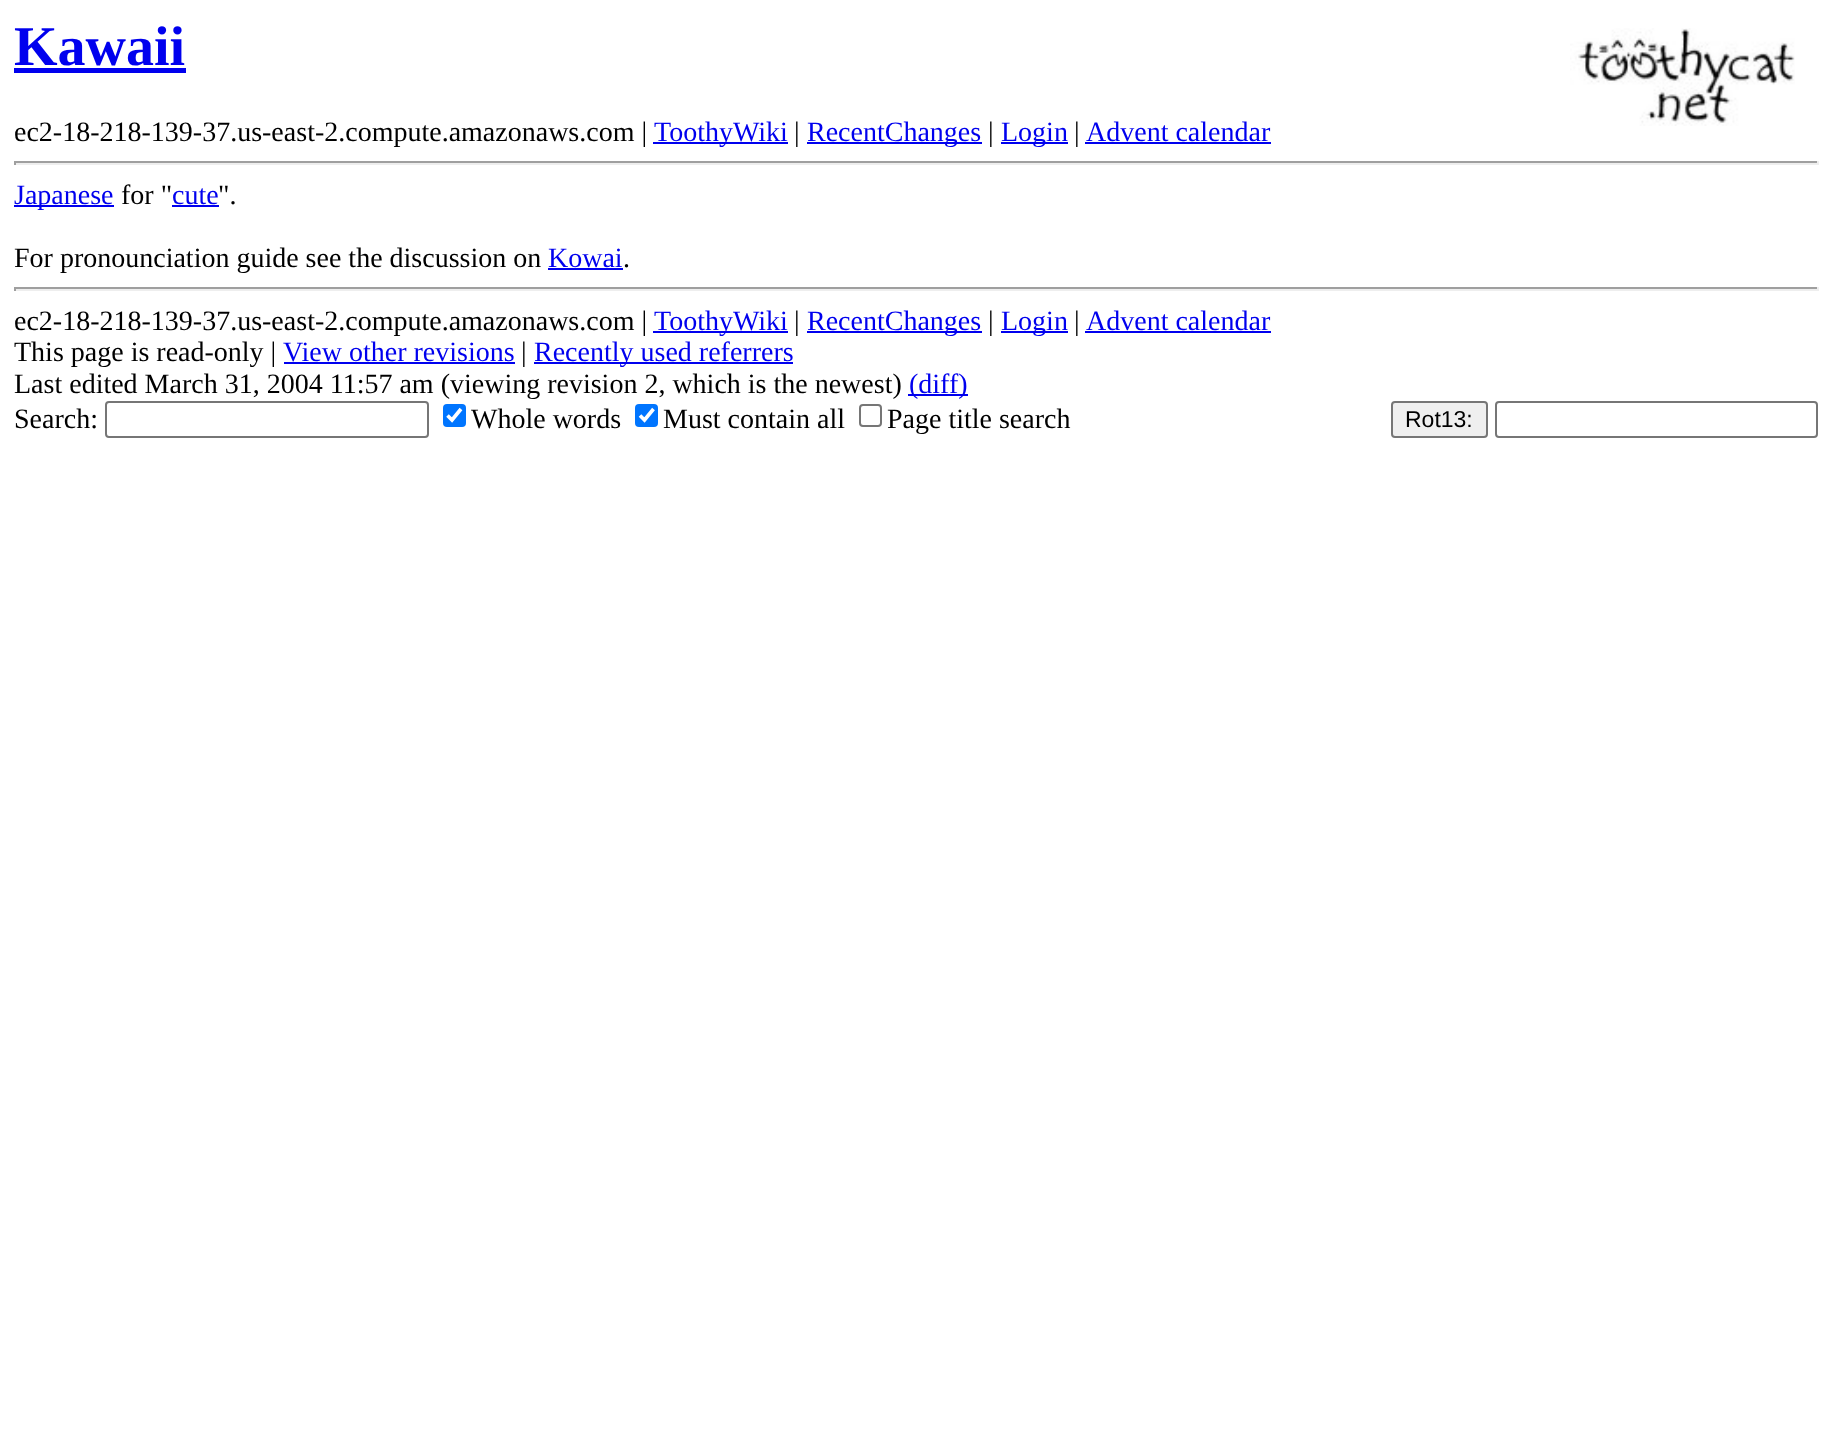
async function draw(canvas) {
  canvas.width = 1831
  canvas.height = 1431
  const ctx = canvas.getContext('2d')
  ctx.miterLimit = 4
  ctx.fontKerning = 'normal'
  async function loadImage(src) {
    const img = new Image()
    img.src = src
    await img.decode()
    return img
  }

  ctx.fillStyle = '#fff'
  ctx.fillRect(0, 0, 1831, 1431)
  ctx.font = 'bold 56px Liberation Serif'
  ctx.fillStyle = '#00e'
  ctx.fillText('Kawaii', 14, 65)
  ctx.fillRect(14, 68, 172, 5)
  ctx.drawImage(await loadImage('image0.png'), 1570, 28, 225, 98)
  ctx.font = '28px Liberation Serif'
  ctx.fillStyle = '#000'
  ctx.fillText('ec2-18-218-139-37.us-east-2.compute.amazonaws.com |', 14, 141)
  ctx.fillStyle = '#00e'
  ctx.fillRect(653, 142, 135, 2)
  ctx.fillText('ToothyWiki', 654, 141)
  ctx.fillStyle = '#000'
  ctx.fillText('|', 794, 141)
  ctx.fillStyle = '#00e'
  ctx.fillRect(807, 142, 175, 2)
  ctx.fillText('RecentChanges', 807, 141)
  ctx.fillStyle = '#000'
  ctx.fillText('|', 988, 141)
  ctx.fillStyle = '#00e'
  ctx.fillRect(1001, 142, 67, 2)
  ctx.fillText('Login', 1001, 141)
  ctx.fillStyle = '#000'
  ctx.fillText('|', 1074, 141)
  ctx.fillStyle = '#00e'
  ctx.fillText('Advent calendar', 1086, 141)
  ctx.fillRect(1085, 142, 186, 2)
  ctx.fillStyle = '#9f9f9f'
  ctx.fillRect(14, 161, 1804, 2)
  ctx.fillStyle = '#eee'
  ctx.fillRect(1817, 161, 2, 4)
  ctx.fillRect(14, 163, 1804, 2)
  ctx.fillStyle = '#9f9f9f'
  ctx.fillRect(14, 161, 2, 4)
  ctx.fillStyle = '#00e'
  ctx.fillRect(14, 205, 100, 2)
  ctx.fillText('Japanese', 14, 204)
  ctx.fillStyle = '#000'
  ctx.fillText('for "', 121, 204)
  ctx.fillStyle = '#00e'
  ctx.fillText('cute', 172, 204)
  ctx.fillRect(172, 205, 47, 2)
  ctx.fillStyle = '#000'
  ctx.fillText('".', 218, 204)
  ctx.fillText('For pronounciation guide see the discussion on', 14, 267)
  ctx.fillStyle = '#00e'
  ctx.fillText('Kowai', 548, 267)
  ctx.fillRect(548, 268, 75, 2)
  ctx.fillStyle = '#000'
  ctx.fillText('.', 623, 267)
  ctx.fillStyle = '#9f9f9f'
  ctx.fillRect(14, 287, 1804, 2)
  ctx.fillStyle = '#eee'
  ctx.fillRect(1817, 287, 2, 4)
  ctx.fillRect(14, 289, 1804, 2)
  ctx.fillStyle = '#9f9f9f'
  ctx.fillRect(14, 287, 2, 4)
  ctx.fillStyle = '#000'
  ctx.fillText('ec2-18-218-139-37.us-east-2.compute.amazonaws.com |', 14, 330)
  ctx.fillStyle = '#00e'
  ctx.fillRect(653, 331, 135, 2)
  ctx.fillText('ToothyWiki', 654, 330)
  ctx.fillStyle = '#000'
  ctx.fillText('|', 794, 330)
  ctx.fillStyle = '#00e'
  ctx.fillRect(807, 331, 175, 2)
  ctx.fillText('RecentChanges', 807, 330)
  ctx.fillStyle = '#000'
  ctx.fillText('|', 988, 330)
  ctx.fillStyle = '#00e'
  ctx.fillRect(1001, 331, 67, 2)
  ctx.fillText('Login', 1001, 330)
  ctx.fillStyle = '#000'
  ctx.fillText('|', 1074, 330)
  ctx.fillStyle = '#00e'
  ctx.fillText('Advent calendar', 1086, 330)
  ctx.fillRect(1085, 331, 186, 2)
  ctx.fillStyle = '#000'
  ctx.fillText('This page is read-only |', 14, 361)
  ctx.fillStyle = '#00e'
  ctx.fillText('View other revisions', 283, 361)
  ctx.fillRect(284, 362, 231, 2)
  ctx.fillStyle = '#000'
  ctx.fillText('|', 521, 361)
  ctx.fillStyle = '#00e'
  ctx.fillRect(534, 362, 259, 2)
  ctx.fillText('Recently used referrers', 534, 361)
  ctx.fillStyle = '#000'
  ctx.fillText('Last edited March 31, 2004 11:57 am (viewing revision 2, which is the newest)', 14, 393)
  ctx.fillStyle = '#00e'
  ctx.fillRect(908, 394, 60, 2)
  ctx.fillText('(diff)', 909, 393)
  ctx.fillStyle = '#000'
  ctx.fillText('Search:', 14, 428)
  ctx.beginPath()
  ctx.roundRect(106, 402, 322, 35, 3)
  ctx.strokeStyle = '#767676'
  ctx.lineWidth = 2
  ctx.stroke()
  ctx.fillStyle = '#0075ff'
  ctx.beginPath()
  ctx.roundRect(443, 404, 23, 23, 4)
  ctx.fill()
  ctx.beginPath()
  ctx.moveTo(447.5, 415.5)
  ctx.lineTo(452, 420)
  ctx.lineTo(461, 409)
  ctx.strokeStyle = '#fff'
  ctx.lineWidth = 3.6
  ctx.stroke()
  ctx.fillStyle = '#000'
  ctx.fillText('Whole words', 471, 428)
  ctx.fillStyle = '#0075ff'
  ctx.beginPath()
  ctx.roundRect(635, 404, 23, 23, 4)
  ctx.fill()
  ctx.beginPath()
  ctx.moveTo(640, 415.5)
  ctx.lineTo(644.5, 420)
  ctx.lineTo(653.5, 409)
  ctx.stroke()
  ctx.fillStyle = '#000'
  ctx.fillText('Must contain all', 663, 428)
  ctx.beginPath()
  ctx.roundRect(860, 405, 21, 21, 3)
  ctx.strokeStyle = '#767676'
  ctx.lineWidth = 2
  ctx.stroke()
  ctx.fillText('Page title search', 887, 428)
  ctx.fillStyle = '#efefef'
  ctx.beginPath()
  ctx.roundRect(1392, 402, 95, 35, 3)
  ctx.fill()
  ctx.stroke()
  ctx.font = '23px Liberation Sans'
  ctx.fillStyle = '#000'
  ctx.fillText('Rot13:', 1405, 427)
  ctx.beginPath()
  ctx.roundRect(1496, 402, 321, 35, 3)
  ctx.stroke()
}

draw(document.querySelector('canvas'))
